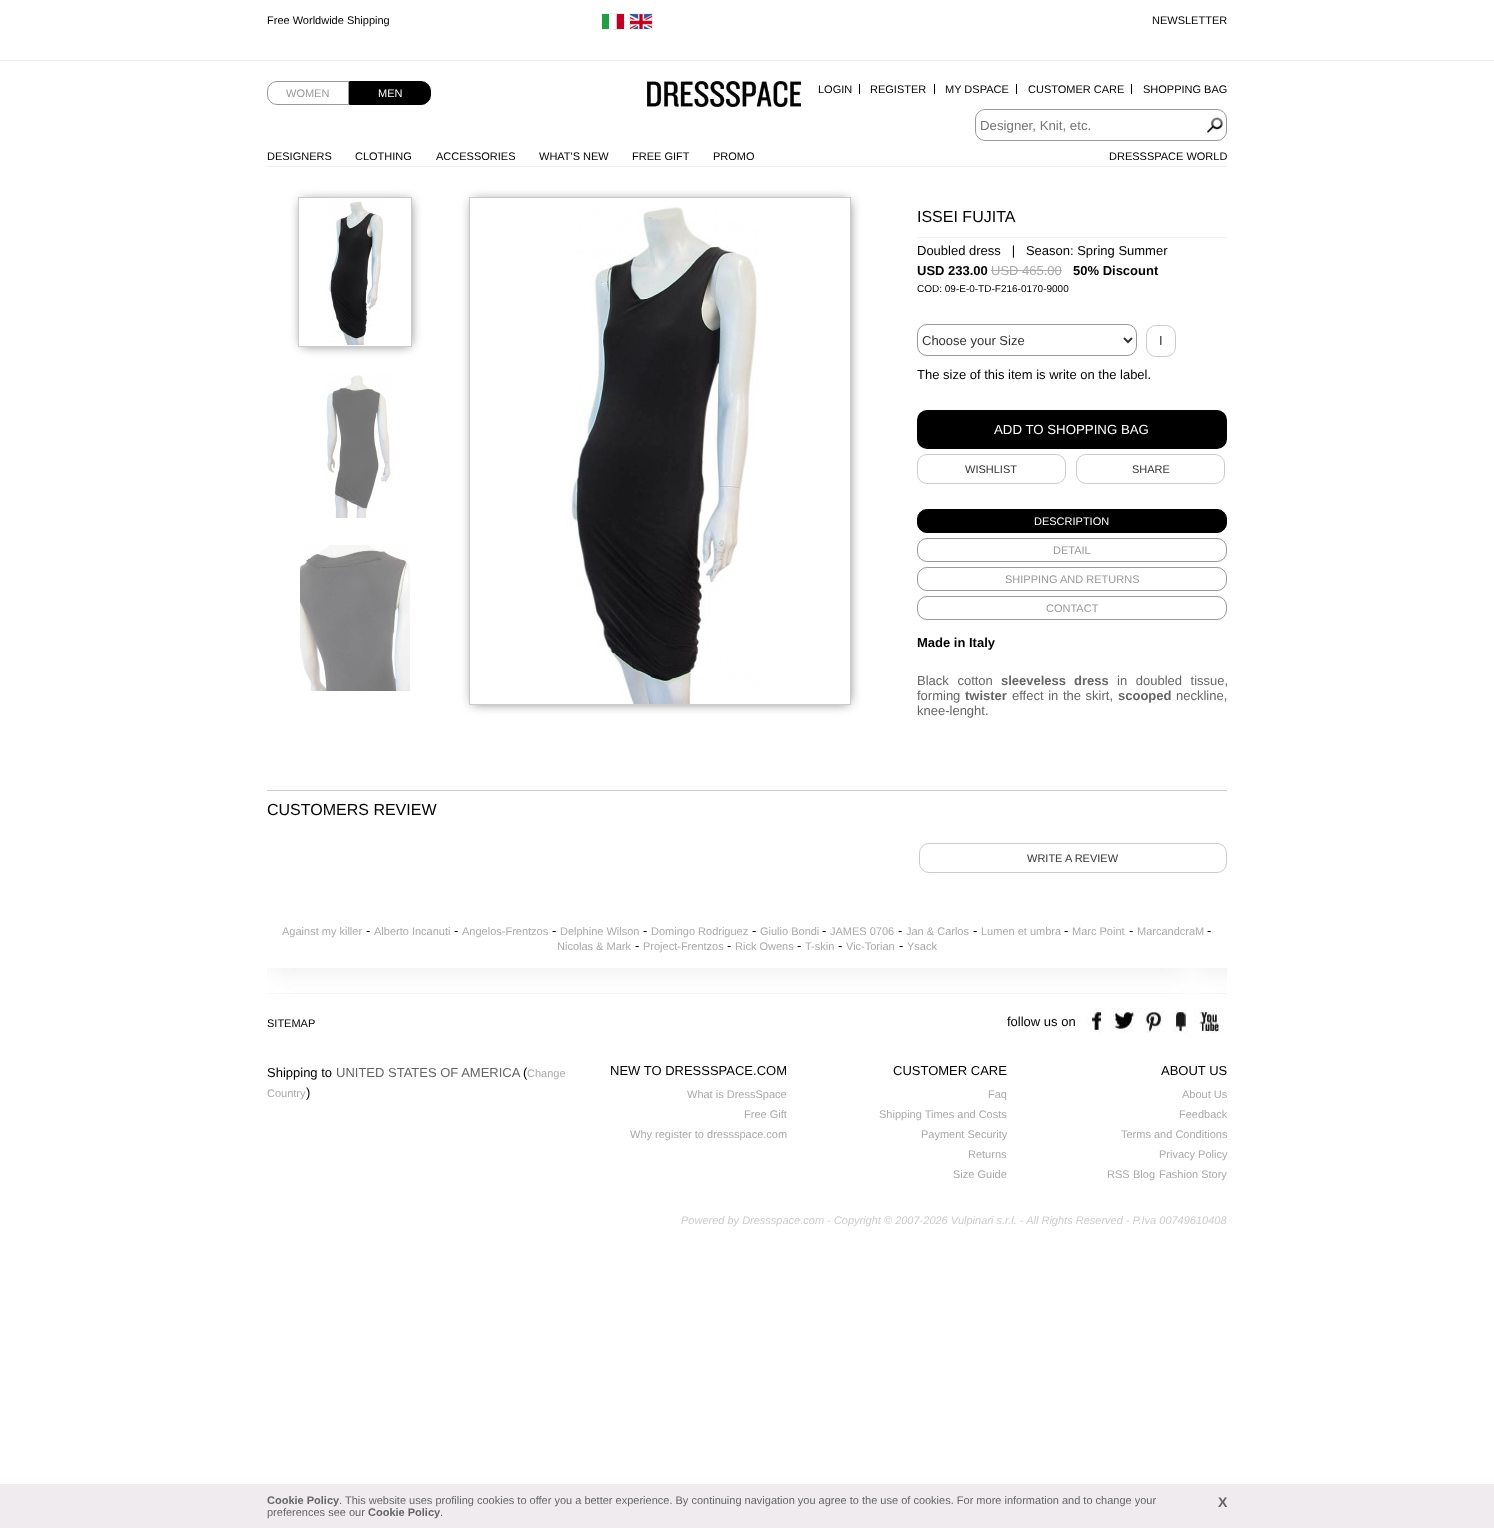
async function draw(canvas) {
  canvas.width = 1494
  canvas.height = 1528
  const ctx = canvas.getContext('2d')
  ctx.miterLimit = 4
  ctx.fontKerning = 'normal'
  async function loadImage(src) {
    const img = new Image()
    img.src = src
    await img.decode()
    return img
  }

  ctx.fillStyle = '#fff'
  ctx.fillRect(0, 0, 1494, 1528)
  ctx.fillStyle = '#eee'
  ctx.fillRect(0, 60, 1494, 1)
  ctx.font = '11px Liberation Sans'
  ctx.fillStyle = '#000'
  ctx.fillText('Free Worldwide Shipping', 267, 24)
  ctx.strokeStyle = '#efefef'
  ctx.strokeRect(601.5, 13.5, 23, 16)
  ctx.strokeRect(629.5, 13.5, 23, 16)
  ctx.drawImage(await loadImage('image0.png'), 602, 14, 22, 15)
  ctx.drawImage(await loadImage('image1.png'), 630, 14, 22, 15)
  ctx.fillText('NEWSLETTER', 1152, 24)
  ctx.fillStyle = '#eee'
  ctx.fillRect(267, 166, 960, 1)
  ctx.beginPath()
  ctx.roundRect(267.5, 81.5, 81, 23, [9.5, 0, 0, 9.5])
  ctx.strokeStyle = '#999'
  ctx.stroke()
  ctx.fillStyle = '#999'
  ctx.fillText('WOMEN', 286, 97)
  ctx.fillStyle = '#000'
  ctx.beginPath()
  ctx.roundRect(349.5, 81.5, 81, 23, [0, 9.5, 9.5, 0])
  ctx.fill()
  ctx.strokeStyle = '#000'
  ctx.stroke()
  ctx.fillStyle = '#fff'
  ctx.fillText('MEN', 378, 97)
  ctx.drawImage(await loadImage('image2.png'), 647, 81, 154, 26)
  ctx.fillStyle = '#000'
  ctx.fillRect(859, 84, 1, 10)
  ctx.fillText('LOGIN', 818, 93)
  ctx.fillRect(934, 84, 1, 10)
  ctx.fillText('REGISTER', 870, 93)
  ctx.fillRect(1016, 84, 1, 10)
  ctx.fillText('MY DSPACE', 945, 93)
  ctx.fillRect(1131, 84, 1, 10)
  ctx.fillText('CUSTOMER CARE', 1028, 93)
  ctx.fillText('SHOPPING BAG', 1143, 93)
  ctx.beginPath()
  ctx.roundRect(975.5, 109.5, 251, 31, 9.5)
  ctx.strokeStyle = '#999'
  ctx.stroke()
  ctx.fillStyle = '#fff'
  ctx.beginPath()
  ctx.roundRect(976, 110, 226, 30, 10)
  ctx.fill()
  ctx.font = '13.25px Liberation Sans'
  ctx.fillStyle = '#757575'
  ctx.fillText('Designer, Knit, etc.', 980, 130)
  ctx.drawImage(await loadImage('image3.png'), 1205, 117, 20, 16)
  ctx.font = '11px Liberation Sans'
  ctx.fillStyle = '#000'
  ctx.fillText('DESIGNERS', 267, 160)
  ctx.fillText('CLOTHING', 355, 160)
  ctx.fillText('ACCESSORIES', 436, 160)
  ctx.fillText('WHAT\'S NEW', 539, 160)
  ctx.fillText('FREE GIFT', 632, 160)
  ctx.fillText('PROMO', 713, 160)
  ctx.fillText('DRESSSPACE WORLD', 1109, 160)
  ctx.save()
  ctx.beginPath()
  ctx.moveTo(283, 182)
  ctx.lineTo(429, 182)
  ctx.lineTo(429, 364)
  ctx.lineTo(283, 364)
  ctx.closePath()
  ctx.moveTo(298, 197)
  ctx.lineTo(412, 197)
  ctx.lineTo(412, 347)
  ctx.lineTo(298, 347)
  ctx.closePath()
  ctx.clip('evenodd')
  ctx.fillStyle = '#666'
  ctx.filter = 'blur(6px)'
  ctx.beginPath()
  ctx.rect(302, 201, 108, 144)
  ctx.fill()
  ctx.filter = 'none'
  ctx.restore()
  ctx.strokeStyle = '#ccc'
  ctx.strokeRect(298.5, 197.5, 113, 149)
  ctx.drawImage(await loadImage('image4.png'), 327, 199, 57, 146)
  ctx.drawImage(await loadImage('image5.png'), 325, 373, 70, 145)
  ctx.drawImage(await loadImage('image6.png'), 300, 545, 110, 146)
  ctx.save()
  ctx.beginPath()
  ctx.moveTo(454, 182)
  ctx.lineTo(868, 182)
  ctx.lineTo(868, 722)
  ctx.lineTo(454, 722)
  ctx.closePath()
  ctx.moveTo(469, 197)
  ctx.lineTo(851, 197)
  ctx.lineTo(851, 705)
  ctx.lineTo(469, 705)
  ctx.closePath()
  ctx.clip('evenodd')
  ctx.fillStyle = '#666'
  ctx.filter = 'blur(6px)'
  ctx.beginPath()
  ctx.rect(473, 201, 376, 502)
  ctx.fill()
  ctx.filter = 'none'
  ctx.restore()
  ctx.strokeRect(469.5, 197.5, 381, 507)
  ctx.drawImage(await loadImage('image7.png'), 569, 207, 189, 497)
  ctx.fillStyle = '#efefef'
  ctx.fillRect(917, 237, 310, 1)
  ctx.font = '16px Liberation Sans'
  ctx.fillStyle = '#000'
  ctx.fillText('ISSEI FUJITA', 917, 222)
  ctx.font = '13px Liberation Sans'
  ctx.fillText('Doubled dress   |   Season: Spring Summer', 917, 255)
  ctx.font = 'bold 13px Liberation Sans'
  ctx.fillText('USD 233.00', 917, 275)
  ctx.font = '13px Liberation Sans'
  ctx.fillStyle = '#aaa'
  ctx.fillText('USD 465.00', 991, 275)
  ctx.fillRect(991, 270, 71, 1)
  ctx.font = 'bold 13px Liberation Sans'
  ctx.fillStyle = '#000'
  ctx.fillText('50% Discount', 1073, 275)
  ctx.font = '10px Liberation Sans'
  ctx.fillText('COD: 09-E-0-TD-F216-0170-9000', 917, 292)
  ctx.beginPath()
  ctx.roundRect(917.5, 324.5, 219, 31, 9.5)
  ctx.strokeStyle = '#999'
  ctx.stroke()
  ctx.beginPath()
  ctx.moveTo(1124, 338)
  ctx.lineTo(1128, 342)
  ctx.lineTo(1132, 338)
  ctx.strokeStyle = '#333'
  ctx.lineWidth = 2
  ctx.stroke()
  ctx.font = '13px Liberation Sans'
  ctx.fillStyle = '#333'
  ctx.fillText('Choose your Size', 922, 345)
  ctx.beginPath()
  ctx.roundRect(1146.5, 325.5, 29, 31, 9.5)
  ctx.strokeStyle = '#ccc'
  ctx.lineWidth = 1
  ctx.stroke()
  ctx.fillText('I', 1159, 345)
  ctx.fillStyle = '#000'
  ctx.fillText('The size of this item is write on the label.', 917, 379)
  ctx.beginPath()
  ctx.roundRect(917, 410, 310, 39, 10)
  ctx.fill()
  ctx.font = '13.25px Liberation Sans'
  ctx.fillStyle = '#fff'
  ctx.fillText('ADD TO SHOPPING BAG', 994, 434)
  ctx.beginPath()
  ctx.roundRect(917.5, 454.5, 148, 29, 9.5)
  ctx.stroke()
  ctx.font = '11px Liberation Sans'
  ctx.fillStyle = '#333'
  ctx.fillText('WISHLIST', 965, 473)
  ctx.beginPath()
  ctx.roundRect(1076.5, 454.5, 148, 29, 9.5)
  ctx.stroke()
  ctx.fillText('SHARE', 1132, 473)
  ctx.fillStyle = '#000'
  ctx.beginPath()
  ctx.roundRect(917.5, 509.5, 309, 23, 9.5)
  ctx.fill()
  ctx.strokeStyle = '#000'
  ctx.stroke()
  ctx.fillStyle = '#fff'
  ctx.fillText('DESCRIPTION', 1034, 525)
  ctx.beginPath()
  ctx.roundRect(917.5, 538.5, 309, 23, 9.5)
  ctx.strokeStyle = '#999'
  ctx.stroke()
  ctx.fillStyle = '#999'
  ctx.fillText('DETAIL', 1053, 554)
  ctx.beginPath()
  ctx.roundRect(917.5, 567.5, 309, 23, 9.5)
  ctx.stroke()
  ctx.fillText('SHIPPING AND RETURNS', 1005, 583)
  ctx.beginPath()
  ctx.roundRect(917.5, 596.5, 309, 23, 9.5)
  ctx.stroke()
  ctx.fillText('CONTACT', 1046, 612)
  ctx.font = 'bold 13px Liberation Sans'
  ctx.fillStyle = '#000'
  ctx.fillText('Made in Italy', 917, 647)
  ctx.wordSpacing = '5px'
  ctx.font = '13px Liberation Sans'
  ctx.fillStyle = '#666'
  ctx.fillText('Black cotton', 917, 685)
  ctx.wordSpacing = '0px'
  ctx.font = 'bold 13px Liberation Sans'
  ctx.fillText('sleeveless', 1001, 685)
  ctx.fillText('dress', 1074, 685)
  ctx.wordSpacing = '5px'
  ctx.font = '13px Liberation Sans'
  ctx.fillText('in doubled tissue,', 1117, 685)
  ctx.wordSpacing = '0px'
  ctx.fillText('forming', 917, 700)
  ctx.font = 'bold 13px Liberation Sans'
  ctx.fillText('twister', 965, 700)
  ctx.wordSpacing = '1px'
  ctx.font = '13px Liberation Sans'
  ctx.fillText('effect in the skirt,', 1012, 700)
  ctx.wordSpacing = '0px'
  ctx.font = 'bold 13px Liberation Sans'
  ctx.fillText('scooped', 1118, 700)
  ctx.font = '13px Liberation Sans'
  ctx.fillText('neckline,', 1176, 700)
  ctx.fillText('knee-lenght.', 917, 715)
  ctx.fillStyle = '#ccc'
  ctx.fillRect(267, 790, 960, 1)
  ctx.font = '16px Liberation Sans'
  ctx.fillStyle = '#000'
  ctx.fillText('CUSTOMERS REVIEW', 267, 815)
  ctx.beginPath()
  ctx.roundRect(919.5, 843.5, 307, 29, 9.5)
  ctx.strokeStyle = '#ccc'
  ctx.stroke()
  ctx.font = '11px Liberation Sans'
  ctx.fillStyle = '#333'
  ctx.fillText('WRITE A REVIEW', 1027, 862)
  ctx.fillStyle = '#aaa'
  ctx.fillText('Against my killer', 282, 935)
  ctx.font = '13px Liberation Sans'
  ctx.fillStyle = '#000'
  ctx.fillText('-', 366, 935)
  ctx.font = '11px Liberation Sans'
  ctx.fillStyle = '#aaa'
  ctx.fillText('Alberto Incanuti', 374, 935)
  ctx.font = '13px Liberation Sans'
  ctx.fillStyle = '#000'
  ctx.fillText('-', 454, 935)
  ctx.font = '11px Liberation Sans'
  ctx.fillStyle = '#aaa'
  ctx.fillText('Angelos-Frentzos', 462, 935)
  ctx.font = '13px Liberation Sans'
  ctx.fillStyle = '#000'
  ctx.fillText('-', 552, 935)
  ctx.font = '11px Liberation Sans'
  ctx.fillStyle = '#aaa'
  ctx.fillText('Delphine Wilson', 560, 935)
  ctx.font = '13px Liberation Sans'
  ctx.fillStyle = '#000'
  ctx.fillText('-', 643, 935)
  ctx.font = '11px Liberation Sans'
  ctx.fillStyle = '#aaa'
  ctx.fillText('Domingo Rodriguez', 651, 935)
  ctx.font = '13px Liberation Sans'
  ctx.fillStyle = '#000'
  ctx.fillText('-', 752, 935)
  ctx.font = '11px Liberation Sans'
  ctx.fillStyle = '#aaa'
  ctx.fillText('Giulio Bondi', 760, 935)
  ctx.font = '13px Liberation Sans'
  ctx.fillStyle = '#000'
  ctx.fillText('-', 822, 935)
  ctx.font = '11px Liberation Sans'
  ctx.fillStyle = '#aaa'
  ctx.fillText('JAMES 0706', 830, 935)
  ctx.font = '13px Liberation Sans'
  ctx.fillStyle = '#000'
  ctx.fillText('-', 898, 935)
  ctx.font = '11px Liberation Sans'
  ctx.fillStyle = '#aaa'
  ctx.fillText('Jan & Carlos', 906, 935)
  ctx.font = '13px Liberation Sans'
  ctx.fillStyle = '#000'
  ctx.fillText('-', 973, 935)
  ctx.font = '11px Liberation Sans'
  ctx.fillStyle = '#aaa'
  ctx.fillText('Lumen et umbra', 981, 935)
  ctx.font = '13px Liberation Sans'
  ctx.fillStyle = '#000'
  ctx.fillText('-', 1064, 935)
  ctx.font = '11px Liberation Sans'
  ctx.fillStyle = '#aaa'
  ctx.fillText('Marc Point', 1072, 935)
  ctx.font = '13px Liberation Sans'
  ctx.fillStyle = '#000'
  ctx.fillText('-', 1129, 935)
  ctx.font = '11px Liberation Sans'
  ctx.fillStyle = '#aaa'
  ctx.fillText('MarcandcraM', 1137, 935)
  ctx.font = '13px Liberation Sans'
  ctx.fillStyle = '#000'
  ctx.fillText('-', 1207, 935)
  ctx.font = '11px Liberation Sans'
  ctx.fillStyle = '#aaa'
  ctx.fillText('Nicolas & Mark', 557, 950)
  ctx.font = '13px Liberation Sans'
  ctx.fillStyle = '#000'
  ctx.fillText('-', 635, 950)
  ctx.font = '11px Liberation Sans'
  ctx.fillStyle = '#aaa'
  ctx.fillText('Project-Frentzos', 643, 950)
  ctx.font = '13px Liberation Sans'
  ctx.fillStyle = '#000'
  ctx.fillText('-', 727, 950)
  ctx.font = '11px Liberation Sans'
  ctx.fillStyle = '#aaa'
  ctx.fillText('Rick Owens', 735, 950)
  ctx.font = '13px Liberation Sans'
  ctx.fillStyle = '#000'
  ctx.fillText('-', 797, 950)
  ctx.font = '11px Liberation Sans'
  ctx.fillStyle = '#aaa'
  ctx.fillText('T-skin', 805, 950)
  ctx.font = '13px Liberation Sans'
  ctx.fillStyle = '#000'
  ctx.fillText('-', 838, 950)
  ctx.font = '11px Liberation Sans'
  ctx.fillStyle = '#aaa'
  ctx.fillText('Vic-Torian', 846, 950)
  ctx.font = '13px Liberation Sans'
  ctx.fillStyle = '#000'
  ctx.fillText('-', 899, 950)
  ctx.font = '11px Liberation Sans'
  ctx.fillStyle = '#aaa'
  ctx.fillText('Ysack', 907, 950)
  ctx.drawImage(await loadImage('image8.png'), 267, 968, 960, 26)
  ctx.fillStyle = '#000'
  ctx.fillText('SITEMAP', 267, 1027)
  ctx.font = '13px Liberation Sans'
  ctx.fillText('follow us on', 1007, 1026)
  ctx.drawImage(await loadImage('image9.png'), 1086, 1008, 27, 25)
  ctx.drawImage(await loadImage('image10.png'), 1113, 1008, 26, 25)
  ctx.drawImage(await loadImage('image11.png'), 1140, 1008, 24, 25)
  ctx.drawImage(await loadImage('image12.png'), 1171, 1008, 16, 25)
  ctx.drawImage(await loadImage('image13.png'), 1194, 1008, 27, 25)
  ctx.fillText('Shipping to', 267, 1077)
  ctx.fillStyle = '#666'
  ctx.fillText('UNITED STATES OF AMERICA', 336, 1077)
  ctx.fillStyle = '#000'
  ctx.fillText('(', 523, 1077)
  ctx.font = '11px Liberation Sans'
  ctx.fillStyle = '#aaa'
  ctx.fillText('Change', 527, 1077)
  ctx.fillText('Country', 267, 1097)
  ctx.font = '13px Liberation Sans'
  ctx.fillStyle = '#000'
  ctx.fillText(')', 306, 1097)
  ctx.fillText('NEW TO DRESSSPACE.COM', 610, 1075)
  ctx.font = '11px Liberation Sans'
  ctx.fillStyle = '#aaa'
  ctx.fillText('What is DressSpace', 687, 1098)
  ctx.fillText('Free Gift', 744, 1118)
  ctx.fillText('Why register to dressspace.com', 630, 1138)
  ctx.font = '13px Liberation Sans'
  ctx.fillStyle = '#000'
  ctx.fillText('CUSTOMER CARE', 893, 1075)
  ctx.font = '11px Liberation Sans'
  ctx.fillStyle = '#aaa'
  ctx.fillText('Faq', 988, 1098)
  ctx.fillText('Shipping Times and Costs', 879, 1118)
  ctx.fillText('Payment Security', 921, 1138)
  ctx.fillText('Returns', 968, 1158)
  ctx.fillText('Size Guide', 953, 1178)
  ctx.font = '13px Liberation Sans'
  ctx.fillStyle = '#000'
  ctx.fillText('ABOUT US', 1161, 1075)
  ctx.font = '11px Liberation Sans'
  ctx.fillStyle = '#aaa'
  ctx.fillText('About Us', 1182, 1098)
  ctx.fillText('Feedback', 1179, 1118)
  ctx.fillText('Terms and Conditions', 1121, 1138)
  ctx.fillText('Privacy Policy', 1159, 1158)
  ctx.fillText('RSS', 1107, 1178)
  ctx.fillText('Blog', 1133, 1178)
  ctx.fillText('Fashion Story', 1159, 1178)
  ctx.font = 'italic 11px Liberation Sans'
  ctx.fillStyle = '#ccc'
  ctx.fillText('Powered by Dressspace.com - Copyright © 2007-2026 Vulpinari s.r.l. - All Rights Reserved - P.Iva 00749610408', 681, 1224)
  ctx.fillStyle = '#efebef'
  ctx.fillRect(0, 1484, 1494, 44)
  ctx.font = 'bold 11px Liberation Sans'
  ctx.fillStyle = '#666'
  ctx.fillText('Cookie Policy', 267, 1504)
  ctx.font = '11px Liberation Sans'
  ctx.fillText('. This website uses profiling cookies to offer you a better experience. By continuing navigation you agree to the use of cookies. For more information and to change your', 339, 1504)
  ctx.font = 'bold 14px Liberation Sans'
  ctx.fillText('X', 1218, 1507)
  ctx.font = '11px Liberation Sans'
  ctx.fillText('preferences see our', 267, 1516)
  ctx.font = 'bold 11px Liberation Sans'
  ctx.fillText('Cookie Policy', 368, 1516)
  ctx.font = '11px Liberation Sans'
  ctx.fillText('.', 440, 1516)
}

draw(document.querySelector('canvas'))
